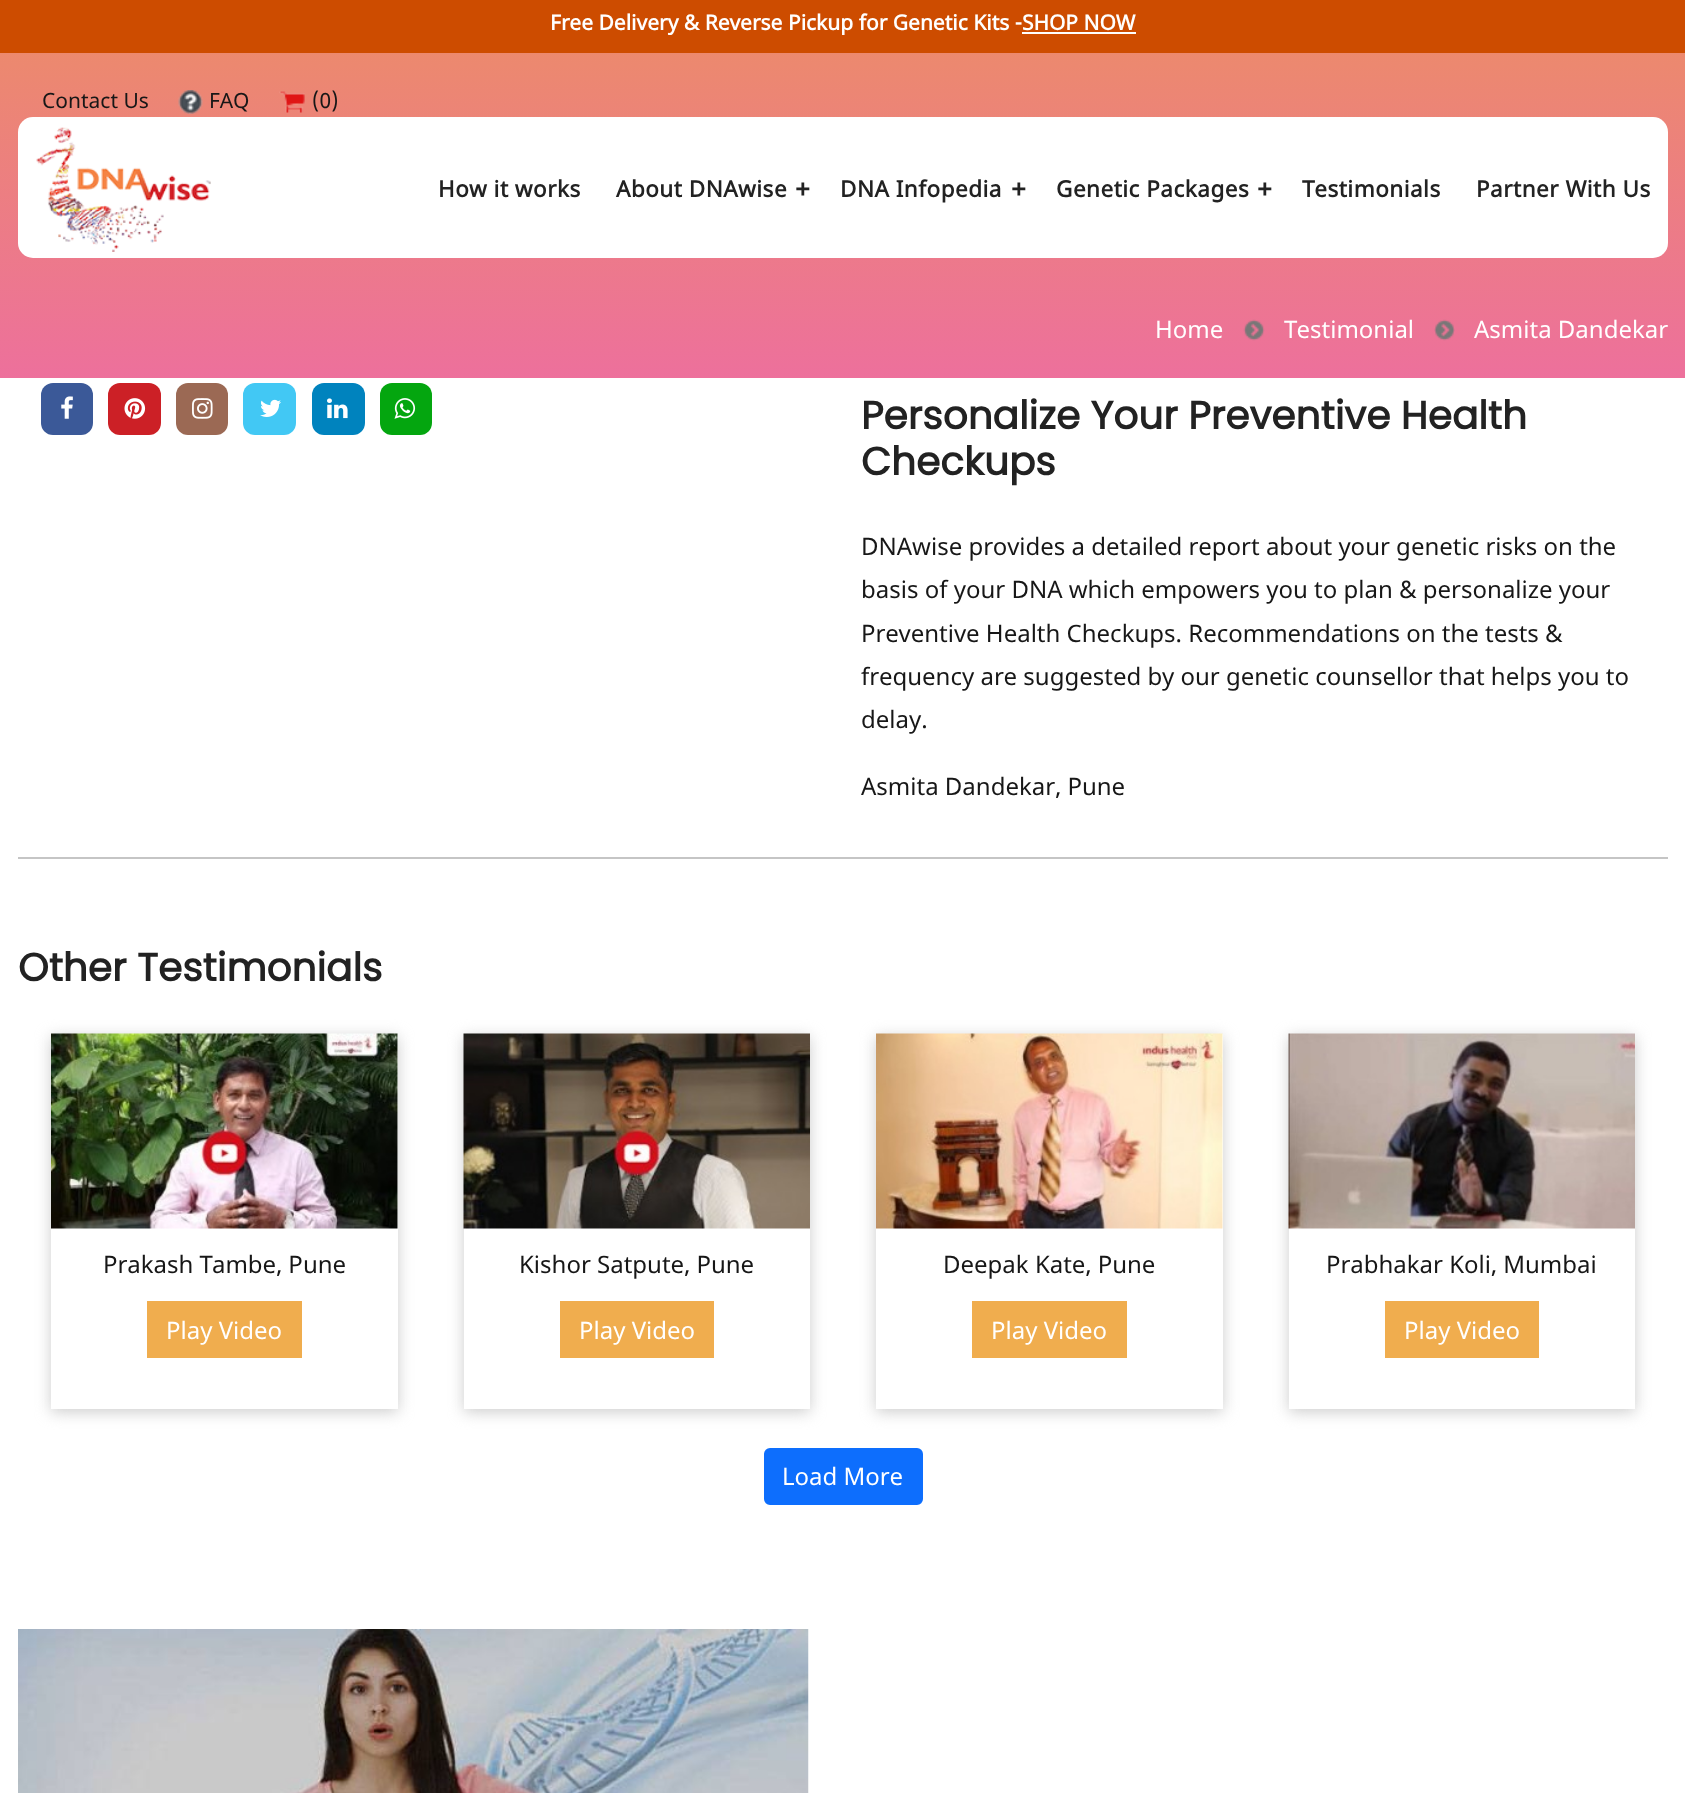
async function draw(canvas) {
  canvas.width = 1685
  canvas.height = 1793
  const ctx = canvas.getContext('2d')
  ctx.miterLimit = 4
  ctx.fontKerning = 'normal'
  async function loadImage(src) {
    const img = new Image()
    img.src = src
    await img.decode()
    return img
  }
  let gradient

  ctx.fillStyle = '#fff'
  ctx.fillRect(0, 0, 1685, 1793)
  ctx.fillStyle = '#cd4c00'
  ctx.fillRect(0, 0, 1685, 53)
  ctx.font = 'bold 21px Noto Sans'
  ctx.fillStyle = '#fff'
  ctx.fillText('Free Delivery & Reverse Pickup for Genetic Kits -SHOP NOW', 550, 30)
  ctx.fillRect(1022, 32, 114, 2)
  gradient = ctx.createLinearGradient(843, 52, 843, 378)
  gradient.addColorStop(0, '#ec896e')
  gradient.addColorStop(1, '#ed709c')
  ctx.fillStyle = gradient
  ctx.fillRect(0, 53, 1685, 325)
  ctx.font = '21px Noto Sans'
  ctx.fillStyle = '#171717'
  ctx.fillText('Contact Us', 42, 108)
  ctx.drawImage(await loadImage('image0.png'), 178, 90, 25, 24)
  ctx.fillText('FAQ', 209, 108)
  ctx.drawImage(await loadImage('image1.png'), 279, 91, 26, 22)
  ctx.fillText('(0)', 312, 108)
  ctx.fillStyle = '#fff'
  ctx.beginPath()
  ctx.roundRect(18, 117, 1650, 141, 15)
  ctx.fill()
  ctx.drawImage(await loadImage('image2.png'), 36, 127, 175, 125)
  ctx.letterSpacing = '0.5px'
  ctx.font = 'bold 22.5px Noto Sans'
  ctx.fillStyle = '#222'
  ctx.fillText('How it works', 438, 197)
  ctx.fillText('About DNAwise', 616, 197)
  ctx.font = 'bold 27px Noto Sans'
  ctx.fillText('+', 795, 198)
  ctx.font = 'bold 22.5px Noto Sans'
  ctx.fillText('DNA Infopedia', 840, 197)
  ctx.font = 'bold 27px Noto Sans'
  ctx.fillText('+', 1011, 198)
  ctx.font = 'bold 22.5px Noto Sans'
  ctx.fillText('Genetic Packages', 1056, 197)
  ctx.font = 'bold 27px Noto Sans'
  ctx.fillText('+', 1257, 198)
  ctx.font = 'bold 22.5px Noto Sans'
  ctx.fillText('Testimonials', 1302, 197)
  ctx.fillText('Partner With Us', 1476, 197)
  ctx.letterSpacing = '0px'
  ctx.font = '24px Noto Sans'
  ctx.fillStyle = '#fff'
  ctx.fillText('Home', 1155, 338)
  ctx.drawImage(await loadImage('image3.png'), 1243, 319, 22, 22)
  ctx.fillText('Testimonial', 1284, 338)
  ctx.drawImage(await loadImage('image4.png'), 1434, 319, 21, 22)
  ctx.fillText('Asmita Dandekar', 1474, 338)
  ctx.fillStyle = '#3b5998'
  ctx.beginPath()
  ctx.roundRect(41, 383, 52, 52, 12)
  ctx.fill()
  ctx.drawImage(await loadImage('image5.png'), 61, 396, 12, 23)
  ctx.fillStyle = '#cc2026'
  ctx.beginPath()
  ctx.roundRect(108, 383, 53, 52, 12)
  ctx.fill()
  ctx.drawImage(await loadImage('image6.png'), 124, 398, 22, 21)
  ctx.fillStyle = '#9b6954'
  ctx.beginPath()
  ctx.roundRect(176, 383, 52, 52, 12)
  ctx.fill()
  ctx.drawImage(await loadImage('image7.png'), 192, 398, 21, 21)
  ctx.fillStyle = '#42c8f4'
  ctx.beginPath()
  ctx.roundRect(243, 383, 53, 52, 12)
  ctx.fill()
  ctx.drawImage(await loadImage('image8.png'), 260, 399, 21, 18)
  ctx.fillStyle = '#0083be'
  ctx.beginPath()
  ctx.roundRect(312, 383, 53, 52, 12)
  ctx.fill()
  ctx.drawImage(await loadImage('image9.png'), 327, 398, 21, 21)
  ctx.fillStyle = '#04a60f'
  ctx.beginPath()
  ctx.roundRect(380, 383, 52, 52, 12)
  ctx.fill()
  ctx.drawImage(await loadImage('image10.png'), 394, 398, 22, 21)
  ctx.font = 'bold 39px Poppins'
  ctx.fillStyle = '#222'
  ctx.fillText('Personalize Your Preventive Health', 861, 429)
  ctx.fillText('Checkups', 861, 475)
  ctx.font = '24px Noto Sans'
  ctx.fillStyle = '#171717'
  ctx.fillText('DNAwise provides a detailed report about your genetic risks on the', 861, 555)
  ctx.fillText('basis of your DNA which empowers you to plan & personalize your', 861, 598)
  ctx.fillText('Preventive Health Checkups. Recommendations on the tests &', 861, 642)
  ctx.fillText('frequency are suggested by our genetic counsellor that helps you to', 861, 685)
  ctx.fillText('delay.', 861, 728)
  ctx.fillText('Asmita Dandekar, Pune', 861, 795)
  ctx.fillStyle = '#c5c5c5'
  ctx.fillRect(18, 857, 1650, 2)
  ctx.font = 'bold 39px Poppins'
  ctx.fillStyle = '#222'
  ctx.fillText('Other Testimonials', 18, 981)
  ctx.save()
  ctx.beginPath()
  ctx.moveTo(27, 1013)
  ctx.lineTo(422, 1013)
  ctx.lineTo(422, 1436)
  ctx.lineTo(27, 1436)
  ctx.closePath()
  ctx.moveTo(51, 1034)
  ctx.lineTo(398, 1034)
  ctx.lineTo(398, 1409)
  ctx.lineTo(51, 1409)
  ctx.closePath()
  ctx.clip('evenodd')
  ctx.fillStyle = '#ccc'
  ctx.filter = 'blur(7.5px)'
  ctx.beginPath()
  ctx.rect(51, 1037, 347, 375)
  ctx.fill()
  ctx.filter = 'none'
  ctx.restore()
  ctx.drawImage(await loadImage('image11.png'), 51, 1033, 347, 196)
  ctx.font = '24px Noto Sans'
  ctx.fillStyle = '#171717'
  ctx.fillText('Prakash Tambe, Pune', 103, 1273)
  ctx.fillStyle = '#f0ad4e'
  ctx.fillRect(147, 1301, 155, 57)
  ctx.fillStyle = '#fff'
  ctx.fillText('Play Video', 166, 1339)
  ctx.save()
  ctx.beginPath()
  ctx.moveTo(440, 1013)
  ctx.lineTo(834, 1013)
  ctx.lineTo(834, 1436)
  ctx.lineTo(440, 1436)
  ctx.closePath()
  ctx.moveTo(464, 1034)
  ctx.lineTo(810, 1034)
  ctx.lineTo(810, 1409)
  ctx.lineTo(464, 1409)
  ctx.closePath()
  ctx.clip('evenodd')
  ctx.fillStyle = '#ccc'
  ctx.filter = 'blur(7.5px)'
  ctx.beginPath()
  ctx.rect(464, 1037, 346, 375)
  ctx.fill()
  ctx.filter = 'none'
  ctx.restore()
  ctx.drawImage(await loadImage('image12.png'), 463, 1033, 347, 196)
  ctx.fillStyle = '#171717'
  ctx.fillText('Kishor Satpute, Pune', 519, 1273)
  ctx.fillStyle = '#f0ad4e'
  ctx.fillRect(560, 1301, 154, 57)
  ctx.fillStyle = '#fff'
  ctx.fillText('Play Video', 579, 1339)
  ctx.save()
  ctx.beginPath()
  ctx.moveTo(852, 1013)
  ctx.lineTo(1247, 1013)
  ctx.lineTo(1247, 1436)
  ctx.lineTo(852, 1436)
  ctx.closePath()
  ctx.moveTo(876, 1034)
  ctx.lineTo(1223, 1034)
  ctx.lineTo(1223, 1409)
  ctx.lineTo(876, 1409)
  ctx.closePath()
  ctx.clip('evenodd')
  ctx.fillStyle = '#ccc'
  ctx.filter = 'blur(7.5px)'
  ctx.beginPath()
  ctx.rect(876, 1037, 347, 375)
  ctx.fill()
  ctx.filter = 'none'
  ctx.restore()
  ctx.drawImage(await loadImage('image13.png'), 876, 1033, 347, 196)
  ctx.fillStyle = '#171717'
  ctx.fillText('Deepak Kate, Pune', 943, 1273)
  ctx.fillStyle = '#f0ad4e'
  ctx.fillRect(972, 1301, 155, 57)
  ctx.fillStyle = '#fff'
  ctx.fillText('Play Video', 991, 1339)
  ctx.save()
  ctx.beginPath()
  ctx.moveTo(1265, 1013)
  ctx.lineTo(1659, 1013)
  ctx.lineTo(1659, 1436)
  ctx.lineTo(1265, 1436)
  ctx.closePath()
  ctx.moveTo(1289, 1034)
  ctx.lineTo(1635, 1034)
  ctx.lineTo(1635, 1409)
  ctx.lineTo(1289, 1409)
  ctx.closePath()
  ctx.clip('evenodd')
  ctx.fillStyle = '#ccc'
  ctx.filter = 'blur(7.5px)'
  ctx.beginPath()
  ctx.rect(1289, 1037, 346, 375)
  ctx.fill()
  ctx.filter = 'none'
  ctx.restore()
  ctx.drawImage(await loadImage('image14.png'), 1288, 1033, 347, 196)
  ctx.fillStyle = '#171717'
  ctx.fillText('Prabhakar Koli, Mumbai', 1326, 1273)
  ctx.fillStyle = '#f0ad4e'
  ctx.fillRect(1385, 1301, 154, 57)
  ctx.fillStyle = '#fff'
  ctx.fillText('Play Video', 1404, 1339)
  ctx.fillStyle = '#0d6efd'
  ctx.beginPath()
  ctx.roundRect(765, 1449, 157, 55, 5)
  ctx.fill()
  ctx.strokeStyle = '#0d6efd'
  ctx.lineWidth = 2
  ctx.stroke()
  ctx.fillStyle = '#fff'
  ctx.fillText('Load More', 782, 1485)
  ctx.drawImage(await loadImage('image15.png'), 18, 1629, 791, 164)
}

draw(document.querySelector('canvas'))
